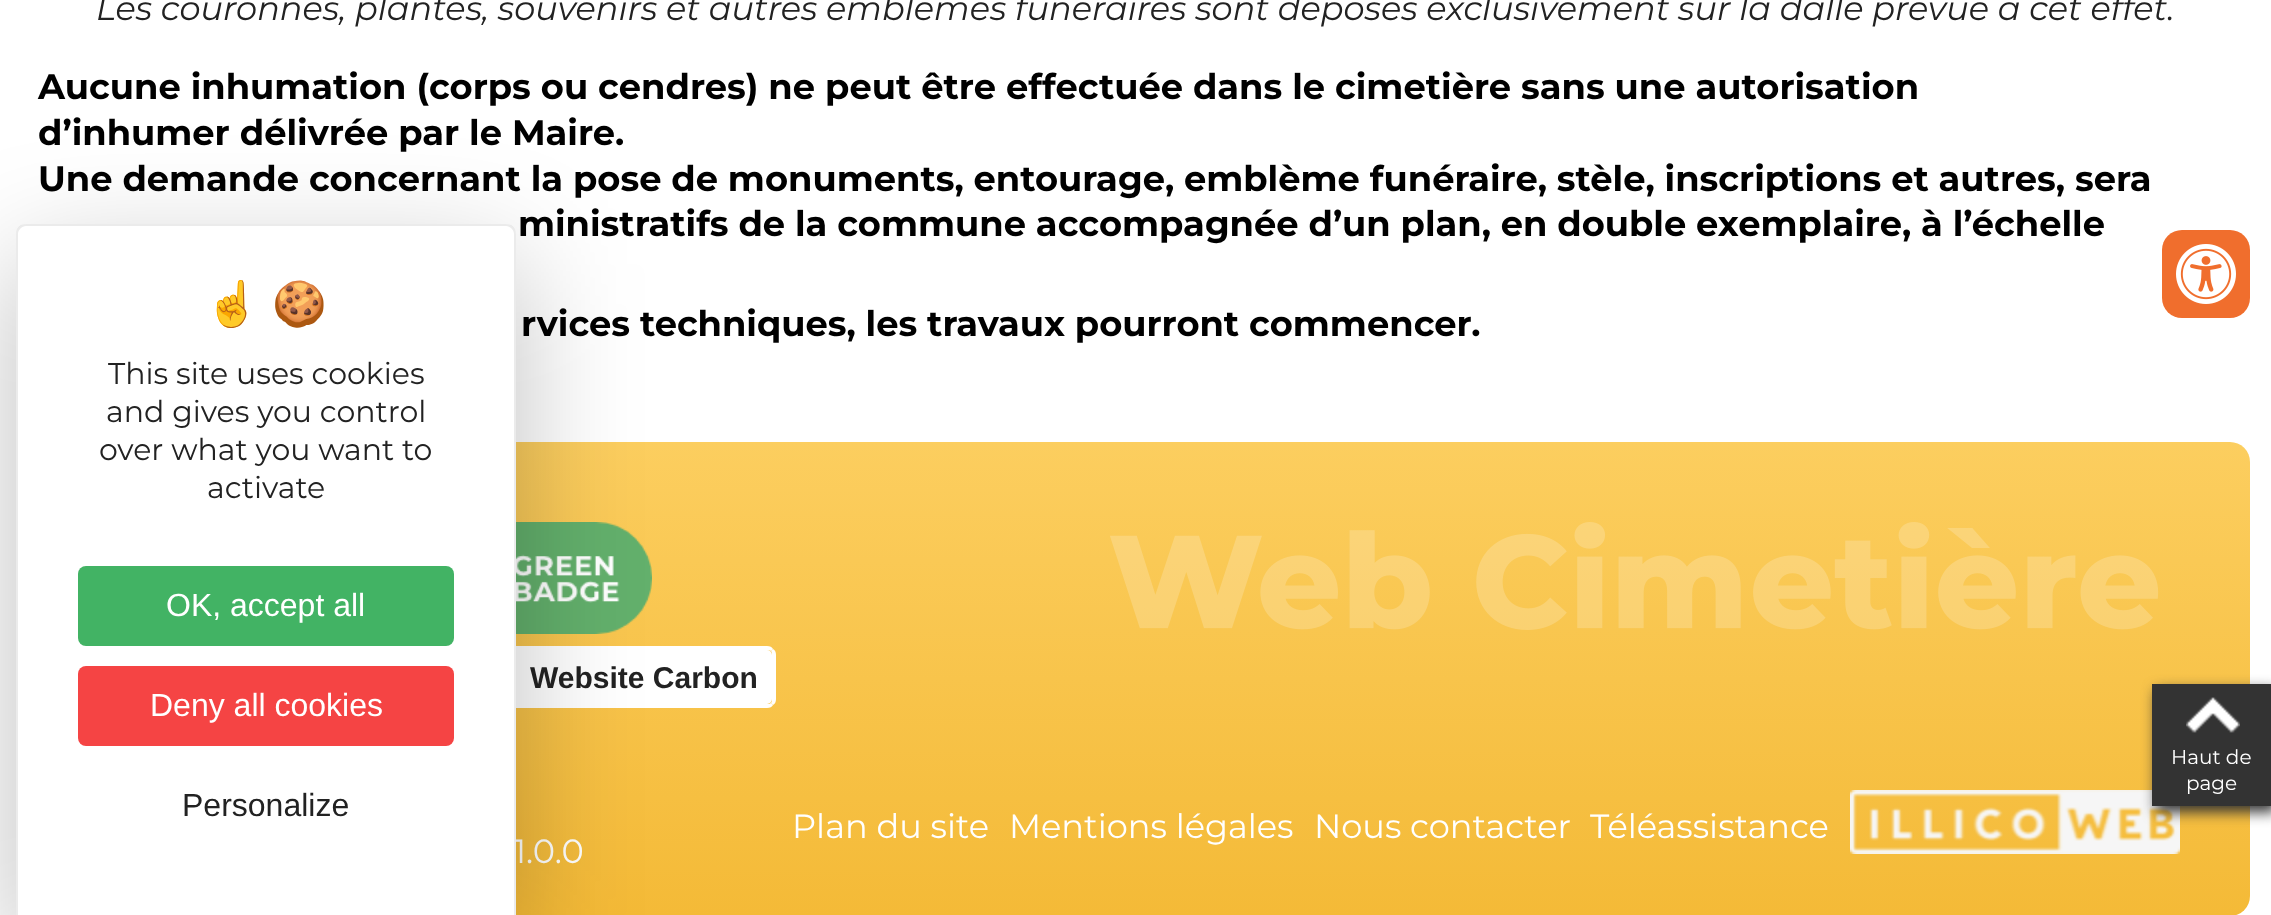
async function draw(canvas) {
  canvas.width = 2271
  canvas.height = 915
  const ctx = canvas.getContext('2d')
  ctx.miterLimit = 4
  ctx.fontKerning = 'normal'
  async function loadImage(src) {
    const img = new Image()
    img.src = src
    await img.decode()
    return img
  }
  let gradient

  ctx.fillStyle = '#fff'
  ctx.fillRect(0, 0, 2271, 915)
  ctx.wordSpacing = '-0.1px'
  ctx.font = 'italic 33.6px Montserrat'
  ctx.fillStyle = '#222'
  ctx.fillText('Les couronnes, plantes, souvenirs et autres emblèmes funéraires sont déposés exclusivement sur la dalle prévue à cet effet.', 96, 20)
  ctx.wordSpacing = '0px'
  ctx.font = 'bold 35.28px Montserrat'
  ctx.fillStyle = '#000'
  ctx.fillText('Aucune inhumation (corps ou cendres) ne peut être effectuée dans le cimetière sans une autorisation', 38, 99)
  ctx.fillText('d’inhumer délivrée par le Maire.', 38, 145)
  ctx.wordSpacing = '-0.1px'
  ctx.fillText('Une demande concernant la pose de monuments, entourage, emblème funéraire, stèle, inscriptions et autres, sera', 38, 191)
  ctx.fillText('ministratifs de la commune accompagnée d’un plan, en double exemplaire, à l’échelle', 518, 236)
  ctx.fillText('rvices techniques, les travaux pourront commencer.', 521, 336)
  gradient = ctx.createLinearGradient(1136, 442, 1136, 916)
  gradient.addColorStop(0, '#fcce5f')
  gradient.addColorStop(1, '#f4ba37')
  ctx.fillStyle = gradient
  ctx.beginPath()
  ctx.roundRect(22, 442, 2228, 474, 20)
  ctx.fill()
  ctx.drawImage(await loadImage('image0.png'), 1110, 522, 1049, 108)
  ctx.drawImage(await loadImage('image1.png'), 516, 522, 136, 112)
  ctx.fillStyle = '#fff'
  ctx.beginPath()
  ctx.roundRect(514, 650, 258, 54, [0, 5, 5, 0])
  ctx.fill()
  ctx.beginPath()
  ctx.moveTo(512, 646)
  ctx.lineTo(514, 650)
  ctx.lineTo(767, 650)
  ctx.bezierCurveTo(768, 650, 770, 650, 771, 651)
  ctx.lineTo(773, 649)
  ctx.bezierCurveTo(772, 647, 770, 646, 767, 646)
  ctx.closePath()
  ctx.fill()
  ctx.beginPath()
  ctx.moveTo(776, 699)
  ctx.lineTo(776, 655)
  ctx.bezierCurveTo(776, 652, 775, 650, 773, 649)
  ctx.lineTo(771, 651)
  ctx.bezierCurveTo(772, 652, 772, 654, 772, 655)
  ctx.lineTo(772, 699)
  ctx.bezierCurveTo(772, 700, 772, 702, 771, 703)
  ctx.lineTo(773, 705)
  ctx.bezierCurveTo(775, 704, 776, 702, 776, 699)
  ctx.closePath()
  ctx.fill()
  ctx.beginPath()
  ctx.moveTo(767, 708)
  ctx.bezierCurveTo(770, 708, 772, 707, 773, 705)
  ctx.lineTo(771, 703)
  ctx.bezierCurveTo(770, 704, 768, 704, 767, 704)
  ctx.lineTo(514, 704)
  ctx.lineTo(512, 708)
  ctx.closePath()
  ctx.fill()
  ctx.wordSpacing = '0px'
  ctx.font = 'bold 30px Liberation Sans'
  ctx.fillStyle = '#222'
  ctx.fillText('Website Carbon', 530, 688)
  ctx.font = '33.6px Montserrat'
  ctx.fillStyle = '#fff'
  ctx.fillText('Plan du site', 792, 838)
  ctx.fillText('Mentions légales', 1009, 838)
  ctx.fillText('Nous contacter', 1314, 838)
  ctx.fillText('Téléassistance', 1590, 838)
  ctx.drawImage(await loadImage('image2.png'), 1850, 790, 330, 64)
  ctx.fillText('1.0.0', 514, 863)
  ctx.fillStyle = '#323232'
  ctx.filter = 'blur(7px)'
  ctx.beginPath()
  ctx.rect(2156, 690, 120, 122)
  ctx.fill()
  ctx.filter = 'none'
  ctx.fillStyle = '#333'
  ctx.fillRect(2152, 684, 119, 122)
  ctx.drawImage(await loadImage('image3.png'), 2186, 697, 54, 36)
  ctx.font = '20px Montserrat'
  ctx.fillStyle = '#fff'
  ctx.fillText('Haut de', 2171, 764)
  ctx.fillText('page', 2186, 790)
  ctx.fillStyle = '#00000040'
  ctx.filter = 'blur(60px)'
  ctx.beginPath()
  ctx.roundRect(16, 264, 500, 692, 10)
  ctx.fill()
  ctx.filter = 'none'
  ctx.fillStyle = '#fff'
  ctx.beginPath()
  ctx.moveTo(26, 224)
  ctx.lineTo(506, 224)
  ctx.bezierCurveTo(511.5, 224, 516, 228.5, 516, 234)
  ctx.lineTo(516, 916)
  ctx.lineTo(16, 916)
  ctx.lineTo(16, 234)
  ctx.bezierCurveTo(16, 228.5, 20.5, 224, 26, 224)
  ctx.closePath()
  ctx.fill()
  ctx.fillStyle = '#00000014'
  ctx.beginPath()
  ctx.moveTo(26, 224)
  ctx.lineTo(506, 224)
  ctx.bezierCurveTo(512, 224, 516, 228, 516, 234)
  ctx.lineTo(516, 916)
  ctx.lineTo(16, 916)
  ctx.lineTo(16, 234)
  ctx.bezierCurveTo(16, 228, 20, 224, 26, 224)
  ctx.closePath()
  ctx.moveTo(26, 226)
  ctx.lineTo(506, 226)
  ctx.bezierCurveTo(510, 226, 514, 230, 514, 234)
  ctx.lineTo(514, 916)
  ctx.lineTo(18, 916)
  ctx.lineTo(18, 234)
  ctx.bezierCurveTo(18, 230, 22, 226, 26, 226)
  ctx.closePath()
  ctx.fill('evenodd')
  ctx.font = '44px Noto Color Emoji'
  ctx.fillStyle = '#222'
  ctx.fillText('☝️', 205, 319)
  ctx.fillText('🍪', 272, 319)
  ctx.font = '30px Montserrat'
  ctx.fillText('This site uses cookies', 108, 384)
  ctx.fillText('and gives you control', 106, 422)
  ctx.fillText('over what you want to', 99, 460)
  ctx.fillText('activate', 207, 498)
  ctx.fillStyle = '#42b364'
  ctx.beginPath()
  ctx.roundRect(78, 566, 376, 80, 8)
  ctx.fill()
  ctx.font = '32px Liberation Sans'
  ctx.fillStyle = '#fff'
  ctx.fillText('OK, accept all', 166, 616)
  ctx.fillStyle = '#f54444'
  ctx.beginPath()
  ctx.roundRect(78, 666, 376, 80, 8)
  ctx.fill()
  ctx.fillStyle = '#fff'
  ctx.fillText('Deny all cookies', 150, 716)
  ctx.fillStyle = '#222'
  ctx.fillText('Personalize', 182, 816)
  ctx.fillStyle = '#f06e2d'
  ctx.beginPath()
  ctx.roundRect(2162, 230, 88, 88, 20)
  ctx.fill()
  ctx.drawImage(await loadImage('image4.png'), 2176, 244, 60, 60)
}

draw(document.querySelector('canvas'))
